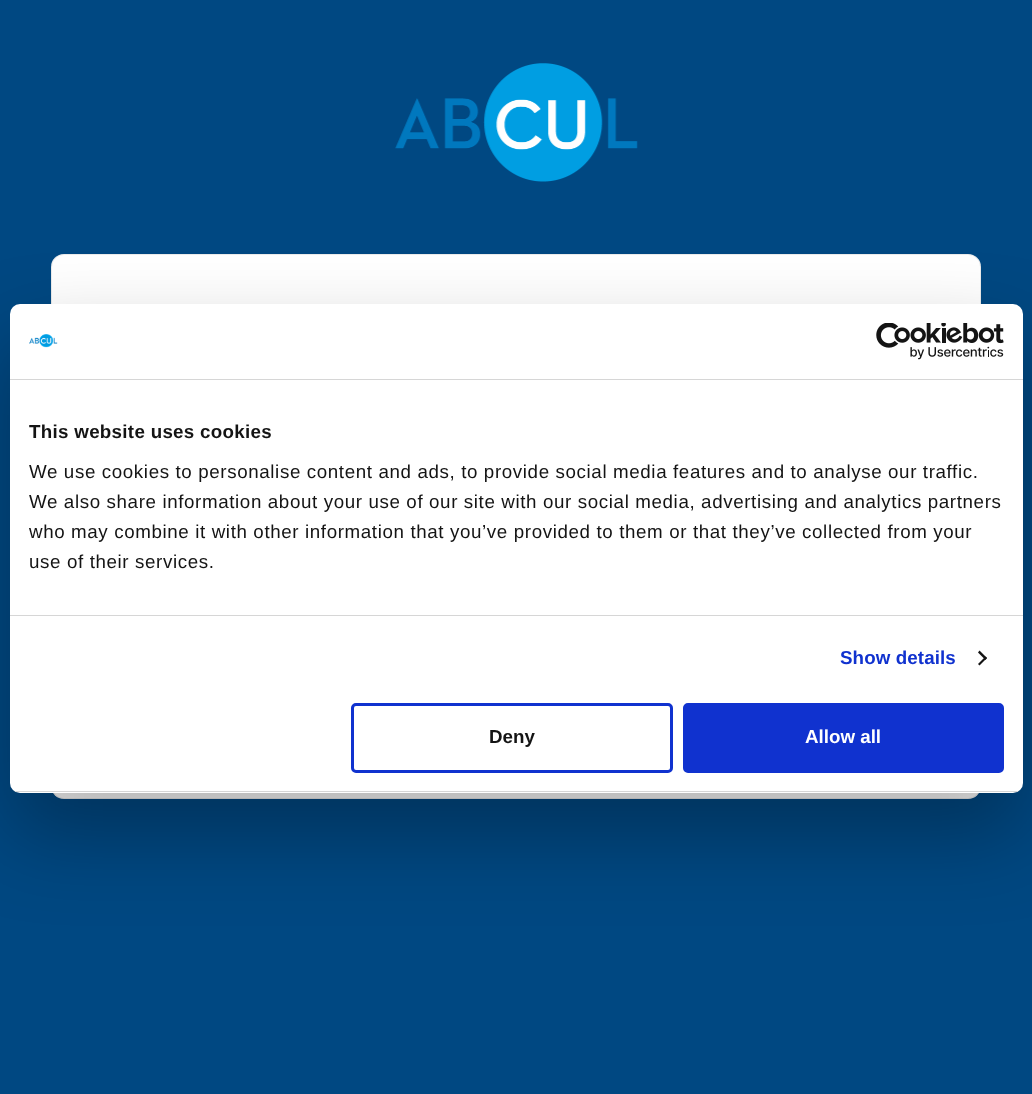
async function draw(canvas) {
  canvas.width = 1032
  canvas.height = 1094
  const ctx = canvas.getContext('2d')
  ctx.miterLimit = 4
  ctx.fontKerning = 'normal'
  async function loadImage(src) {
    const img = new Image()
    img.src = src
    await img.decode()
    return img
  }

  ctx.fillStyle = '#004882'
  ctx.fillRect(0, 0, 1032, 1094)
  ctx.drawImage(await loadImage('image0.png'), 395, 63, 243, 119)
  ctx.fillStyle = '#fff'
  ctx.beginPath()
  ctx.roundRect(51, 254, 930, 545, 13)
  ctx.fill()
  ctx.beginPath()
  ctx.roundRect(51.5, 254.5, 929, 544, 12.5)
  ctx.strokeStyle = '#00000014'
  ctx.stroke()
  ctx.fillStyle = '#0000004d'
  ctx.filter = 'blur(42.5px)'
  ctx.beginPath()
  ctx.roundRect(10, 344, 1013, 489, 10)
  ctx.fill()
  ctx.filter = 'none'
  ctx.fillStyle = '#fff'
  ctx.beginPath()
  ctx.roundRect(10, 304, 1013, 489, 10)
  ctx.fill()
  ctx.fillStyle = '#d6d6d6'
  ctx.fillRect(10, 379, 1013, 1)
  ctx.drawImage(await loadImage('image1.png'), 29, 334, 29, 14)
  ctx.drawImage(await loadImage('image2.png'), 876, 323, 128, 37)
  ctx.fillRect(10, 615, 1013, 1)
  ctx.letterSpacing = '0.3px'
  ctx.font = 'bold 18.75px Liberation Sans'
  ctx.fillStyle = '#141414'
  ctx.fillText('This website uses cookies', 29, 438)
  ctx.letterSpacing = '0.62px'
  ctx.font = '18.75px Liberation Sans'
  ctx.fillText('We use cookies to personalise content and ads, to provide social media features and to analyse our traffic.', 29, 478)
  ctx.fillText('We also share information about your use of our site with our social media, advertising and analytics partners', 29, 508)
  ctx.fillText('who may combine it with other information that you’ve provided to them or that they’ve collected from your', 29, 538)
  ctx.fillText('use of their services.', 29, 568)
  ctx.letterSpacing = '0.1px'
  ctx.font = 'bold 18.75px Liberation Sans'
  ctx.fillStyle = '#1032cf'
  ctx.fillText('Show details', 840, 664)
  ctx.fillStyle = '#141414'
  ctx.beginPath()
  ctx.moveTo(979.5, 650.5)
  ctx.lineTo(987, 658)
  ctx.lineTo(985.5, 660)
  ctx.lineTo(978, 652.5)
  ctx.closePath()
  ctx.fill()
  ctx.beginPath()
  ctx.moveTo(985.5, 656.5)
  ctx.lineTo(987, 658)
  ctx.lineTo(979.5, 665.5)
  ctx.lineTo(978, 664)
  ctx.closePath()
  ctx.fill()
  ctx.save()
  ctx.beginPath()
  ctx.roundRect(10, 304, 1013, 489, 10)
  ctx.clip()
  ctx.fillStyle = '#d6d6d6'
  ctx.fillRect(10, 791, 1013, 1)
  ctx.restore()
  ctx.beginPath()
  ctx.roundRect(352.5, 704.5, 319, 67, 3.5)
  ctx.strokeStyle = '#1032cf'
  ctx.lineWidth = 3
  ctx.stroke()
  ctx.letterSpacing = '0px'
  ctx.fillText('Deny', 489, 743)
  ctx.fillStyle = '#1032cf'
  ctx.beginPath()
  ctx.roundRect(684.5, 704.5, 318, 67, 3.5)
  ctx.fill()
  ctx.stroke()
  ctx.fillStyle = '#fff'
  ctx.fillText('Allow all', 805, 743)
}

draw(document.querySelector('canvas'))
